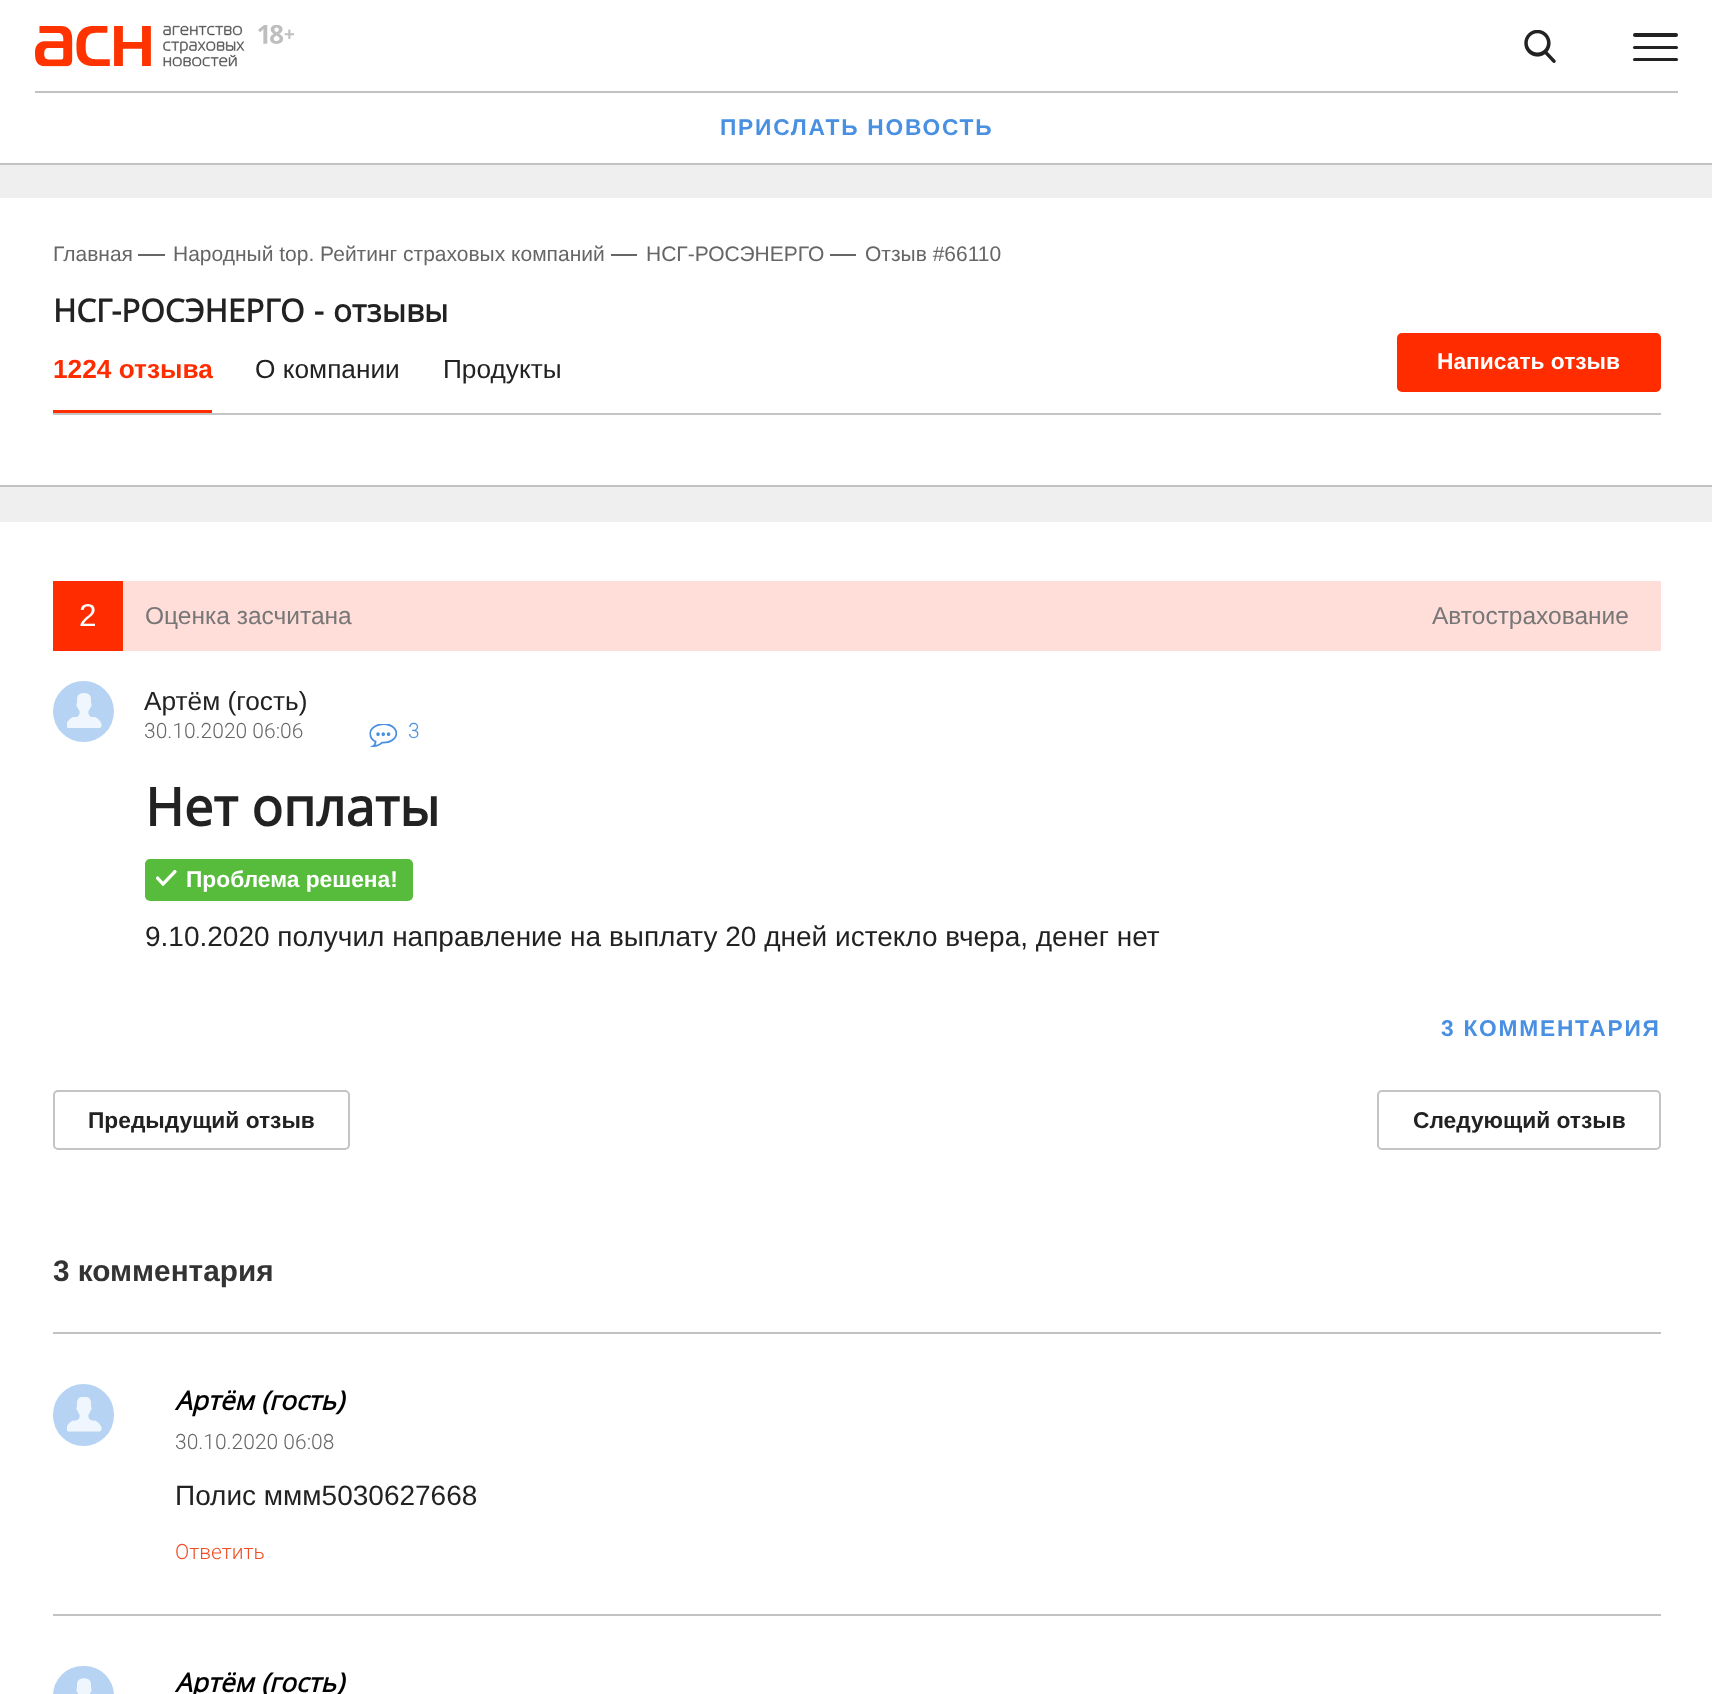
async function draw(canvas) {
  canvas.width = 1712
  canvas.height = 1694
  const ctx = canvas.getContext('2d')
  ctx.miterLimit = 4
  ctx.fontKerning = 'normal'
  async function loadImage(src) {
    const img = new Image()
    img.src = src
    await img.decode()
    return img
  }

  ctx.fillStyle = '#efefef'
  ctx.fillRect(0, 0, 1712, 1694)
  ctx.fillStyle = '#fff'
  ctx.fillRect(0, 0, 1712, 163)
  ctx.drawImage(await loadImage('image0.png'), 35, 25, 260, 42)
  ctx.drawImage(await loadImage('image1.png'), 1524, 30, 32, 33)
  ctx.fillStyle = '#222'
  ctx.beginPath()
  ctx.roundRect(1633, 33, 45, 4, 2)
  ctx.fill()
  ctx.beginPath()
  ctx.roundRect(1633, 46, 45, 3, 1.5)
  ctx.fill()
  ctx.beginPath()
  ctx.roundRect(1633, 58, 45, 3, 1.5)
  ctx.fill()
  ctx.fillStyle = '#c2c2c2'
  ctx.fillRect(0, 163, 1712, 2)
  ctx.fillRect(35, 91, 1643, 2)
  ctx.letterSpacing = '1.75px'
  ctx.font = 'bold 22.75px Liberation Sans'
  ctx.fillStyle = '#4990e2'
  ctx.fillText('ПРИСЛАТЬ НОВОСТЬ', 720, 135)
  ctx.fillStyle = '#fff'
  ctx.fillRect(0, 198, 1712, 287)
  ctx.fillStyle = '#c2c2c2'
  ctx.fillRect(0, 485, 1712, 2)
  ctx.letterSpacing = '0px'
  ctx.font = '21px Liberation Sans'
  ctx.fillStyle = '#666'
  ctx.fillText('Главная', 53, 261)
  ctx.fillRect(138, 254, 27, 2)
  ctx.fillText('Народный top. Рейтинг страховых компаний', 173, 261)
  ctx.fillRect(611, 254, 26, 2)
  ctx.fillText('НСГ-РОСЭНЕРГО', 646, 261)
  ctx.fillRect(830, 254, 26, 2)
  ctx.fillText('Отзыв #66110', 865, 261)
  ctx.wordSpacing = '1px'
  ctx.font = 'bold 31.5px Open Sans'
  ctx.fillStyle = '#222'
  ctx.fillText('НСГ-РОСЭНЕРГО - отзывы', 53, 322)
  ctx.fillStyle = '#c5c5c5'
  ctx.fillRect(53, 413, 1608, 2)
  ctx.fillStyle = '#ff2c00'
  ctx.fillRect(53, 410, 159, 3)
  ctx.wordSpacing = '0px'
  ctx.font = 'bold 26.25px Liberation Sans'
  ctx.fillText('1224 отзыва', 53, 378)
  ctx.font = '26.25px Liberation Sans'
  ctx.fillStyle = '#222'
  ctx.fillText('О компании', 255, 378)
  ctx.fillText('Продукты', 443, 378)
  ctx.fillStyle = '#ff2c00'
  ctx.beginPath()
  ctx.roundRect(1397, 333, 264, 59, 5)
  ctx.fill()
  ctx.font = 'bold 22.75px Liberation Sans'
  ctx.fillStyle = '#fff'
  ctx.fillText('Написать отзыв', 1437, 369)
  ctx.fillRect(0, 522, 1712, 1172)
  ctx.fillStyle = '#ffded9'
  ctx.fillRect(123, 581, 1538, 70)
  ctx.fillStyle = '#ff2c00'
  ctx.fillRect(53, 581, 70, 70)
  ctx.font = '31.5px Liberation Sans'
  ctx.fillStyle = '#fff'
  ctx.fillText('2', 79, 626)
  ctx.font = '24.5px Liberation Sans'
  ctx.fillStyle = '#777'
  ctx.fillText('Оценка засчитана', 145, 624)
  ctx.fillText('Автострахование', 1432, 624)
  ctx.fillStyle = '#b6d3f3'
  ctx.beginPath()
  ctx.arc(83.5, 711.5, 30.5, 0, 2 * Math.PI)
  ctx.fill()
  ctx.drawImage(await loadImage('image2.png'), 67, 693, 35, 35)
  ctx.font = '26.25px Liberation Sans'
  ctx.fillStyle = '#222'
  ctx.fillText('Артём (гость)', 144, 710)
  ctx.font = '300 21px Roboto'
  ctx.fillStyle = '#666'
  ctx.fillText('30.10.2020 06:06', 144, 738)
  ctx.drawImage(await loadImage('image3.png'), 369, 724, 28, 23)
  ctx.fillStyle = '#4990e2'
  ctx.fillText('3', 408, 738)
  ctx.font = 'bold 52.5px Open Sans'
  ctx.fillStyle = '#222'
  ctx.fillText('Нет оплаты', 145, 826)
  ctx.fillStyle = '#57bc3c'
  ctx.beginPath()
  ctx.roundRect(145, 859, 268, 42, 5)
  ctx.fill()
  ctx.drawImage(await loadImage('image4.png'), 156, 870, 21, 16)
  ctx.font = 'bold 22.75px Liberation Sans'
  ctx.fillStyle = '#fff'
  ctx.fillText('Проблема решена!', 186, 887)
  ctx.font = '28px Liberation Sans'
  ctx.fillStyle = '#222'
  ctx.fillText('9.10.2020 получил направление на выплату 20 дней истекло вчера, денег нет', 145, 946)
  ctx.letterSpacing = '1.75px'
  ctx.font = 'bold 22.75px Liberation Sans'
  ctx.fillStyle = '#4990e2'
  ctx.fillText('3 КОММЕНТАРИЯ', 1441, 1036)
  ctx.beginPath()
  ctx.roundRect(54, 1091, 295, 58, 4)
  ctx.strokeStyle = '#c4c4c4'
  ctx.lineWidth = 2
  ctx.stroke()
  ctx.letterSpacing = '0px'
  ctx.fillStyle = '#222'
  ctx.fillText('Предыдущий отзыв', 88, 1128)
  ctx.beginPath()
  ctx.roundRect(1378, 1091, 282, 58, 4)
  ctx.stroke()
  ctx.fillText('Следующий отзыв', 1413, 1128)
  ctx.font = 'bold 29.75px Liberation Sans'
  ctx.fillStyle = '#333'
  ctx.fillText('3 комментария', 53, 1281)
  ctx.fillStyle = '#c2c2c2'
  ctx.fillRect(53, 1332, 1608, 2)
  ctx.fillStyle = '#b6d3f3'
  ctx.beginPath()
  ctx.roundRect(53, 1384, 61, 62, 30.5)
  ctx.fill()
  ctx.drawImage(await loadImage('image5.png'), 67, 1397, 35, 35)
  ctx.font = 'italic bold 26.25px Open Sans'
  ctx.fillStyle = '#000'
  ctx.fillText('Артём', 175, 1410)
  ctx.fillText('(гость)', 261, 1410)
  ctx.font = '300 21px Roboto'
  ctx.fillStyle = '#666'
  ctx.fillText('30.10.2020 06:08', 175, 1449)
  ctx.font = '28px Liberation Sans'
  ctx.fillStyle = '#222'
  ctx.fillText('Полис ммм5030627668', 175, 1505)
  ctx.font = '300 21px Roboto'
  ctx.fillStyle = '#f04e23'
  ctx.fillText('Ответить', 175, 1559)
  ctx.fillStyle = '#c2c2c2'
  ctx.fillRect(53, 1614, 1608, 2)
  ctx.fillStyle = '#b6d3f3'
  ctx.beginPath()
  ctx.roundRect(53, 1666, 61, 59, 30.5)
  ctx.fill()
  ctx.drawImage(await loadImage('image6.png'), 76, 1678, 16, 16)
  ctx.font = 'italic bold 26.25px Open Sans'
  ctx.fillStyle = '#000'
  ctx.fillText('Артём', 175, 1692)
  ctx.fillText('(гость)', 261, 1692)
}

draw(document.querySelector('canvas'))
